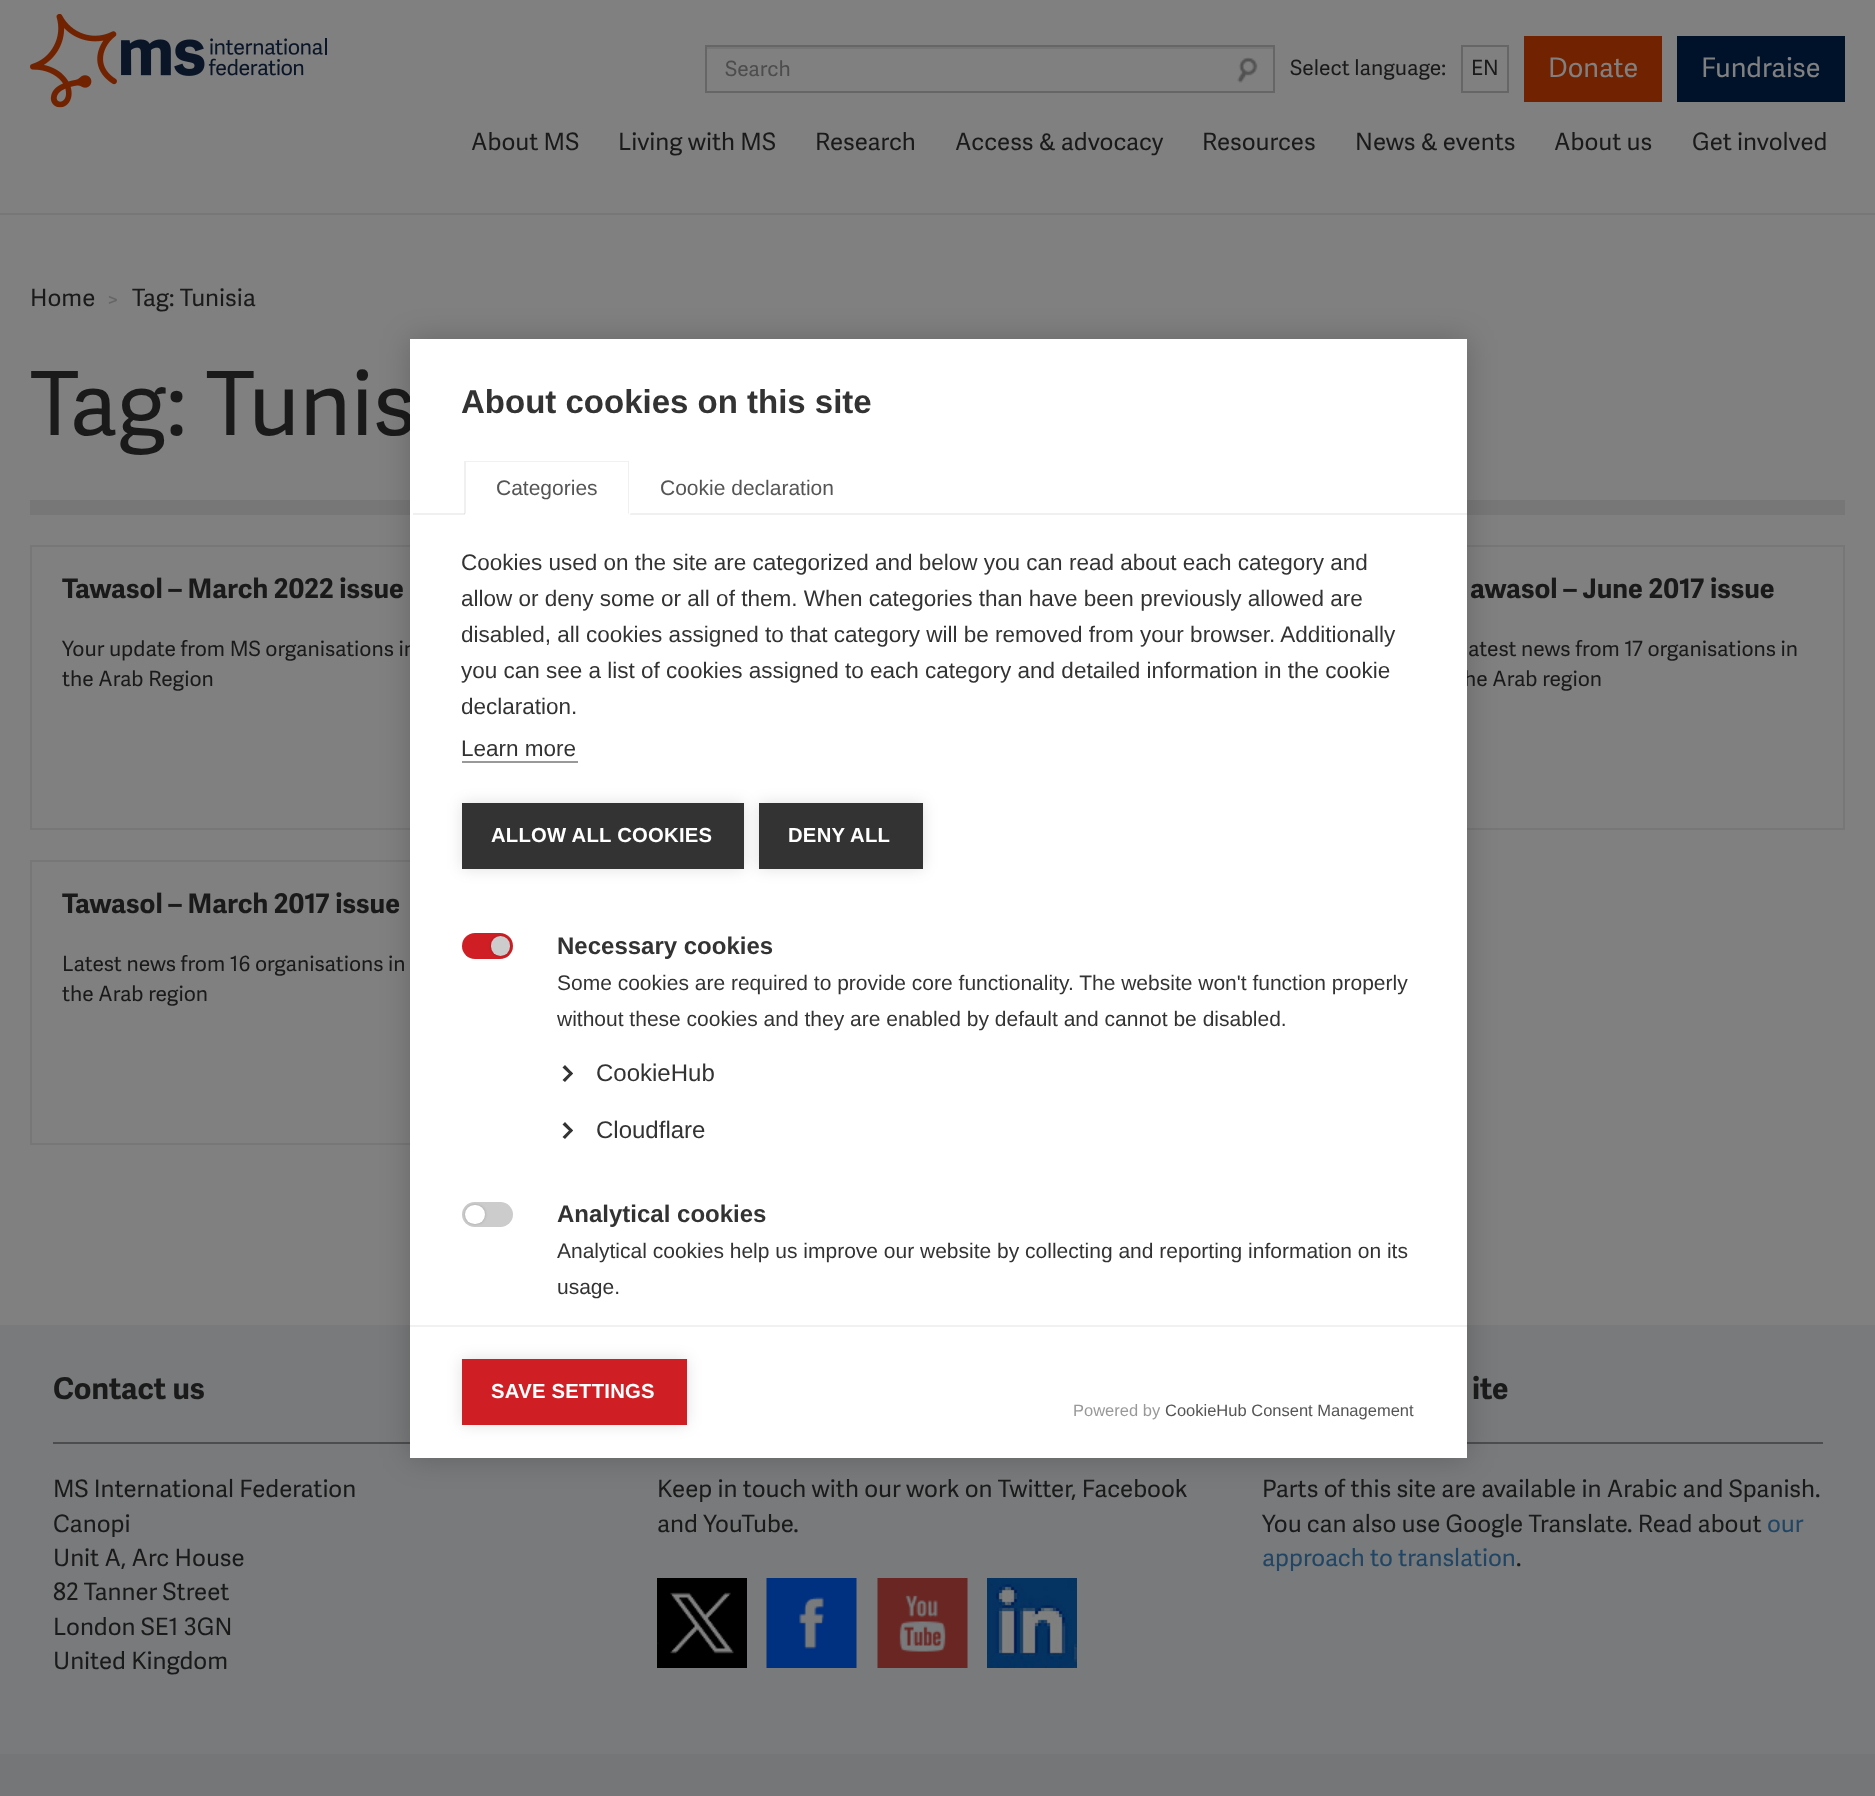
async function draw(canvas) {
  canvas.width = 1875
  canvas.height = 1796
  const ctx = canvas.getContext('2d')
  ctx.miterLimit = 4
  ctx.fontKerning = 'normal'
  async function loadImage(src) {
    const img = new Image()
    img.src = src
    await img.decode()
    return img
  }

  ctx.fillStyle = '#808080'
  ctx.fillRect(0, 0, 1875, 1796)
  ctx.fillStyle = '#777'
  ctx.fillRect(0, 213, 1875, 2)
  ctx.fillStyle = '#767676'
  ctx.fillRect(707, 47, 567, 2)
  ctx.strokeStyle = '#666'
  ctx.lineWidth = 2
  ctx.strokeRect(706, 46, 568, 46)
  ctx.font = '21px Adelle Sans'
  ctx.fillStyle = '#4d4d4d'
  ctx.fillText('Search', 725, 76)
  ctx.drawImage(await loadImage('image0.png'), 1237, 57, 21, 26)
  ctx.fillStyle = '#1a1a1a'
  ctx.fillText('Select language:', 1290, 75)
  ctx.strokeRect(1462, 46, 46, 46)
  ctx.fillText('EN', 1471, 75)
  ctx.fillStyle = '#712201'
  ctx.fillRect(1524, 36, 138, 66)
  ctx.font = '27px Adelle Sans'
  ctx.fillStyle = '#808080'
  ctx.fillText('Donate', 1548, 77)
  ctx.fillStyle = '#00122a'
  ctx.fillRect(1677, 36, 168, 66)
  ctx.fillStyle = '#808080'
  ctx.fillText('Fundraise', 1701, 77)
  ctx.drawImage(await loadImage('image1.png'), 30, 14, 297, 94)
  ctx.font = '24px Adelle Sans'
  ctx.fillStyle = '#1a1a1a'
  ctx.fillText('About MS', 471, 150)
  ctx.fillText('Living with MS', 618, 150)
  ctx.fillText('Research', 815, 150)
  ctx.fillText('Access & advocacy', 955, 150)
  ctx.fillText('Resources', 1202, 150)
  ctx.fillText('News & events', 1355, 150)
  ctx.fillText('About us', 1554, 150)
  ctx.fillText('Get involved', 1692, 150)
  ctx.fillText('Home', 30, 306)
  ctx.font = '21px Adelle Sans'
  ctx.fillStyle = '#666'
  ctx.fillText('>', 107, 306)
  ctx.font = '24px Adelle Sans'
  ctx.fillStyle = '#1a1a1a'
  ctx.fillText('Tag: Tunisia', 132, 306)
  ctx.font = '88.5px Adelle Sans'
  ctx.fillText('Tag: Tunis', 30, 435)
  ctx.fillStyle = '#777'
  ctx.fillRect(30, 500, 1815, 15)
  ctx.strokeStyle = '#777'
  ctx.strokeRect(31, 546, 418, 283)
  ctx.font = 'bold 27px Adelle Sans'
  ctx.fillStyle = '#1a1a1a'
  ctx.fillText('Tawasol – March 2022 issue', 62, 598)
  ctx.font = '21px Adelle Sans'
  ctx.fillText('Your update from MS organisations in', 62, 656)
  ctx.fillText('the Arab Region', 62, 686)
  ctx.strokeRect(1426, 546, 418, 283)
  ctx.font = 'bold 27px Adelle Sans'
  ctx.fillText('awasol – June 2017 issue', 1470, 598)
  ctx.font = '21px Adelle Sans'
  ctx.fillText('atest news from 17 organisations in', 1468, 656)
  ctx.fillText('he Arab region', 1464, 686)
  ctx.strokeRect(31, 861, 418, 283)
  ctx.font = 'bold 27px Adelle Sans'
  ctx.fillText('Tawasol – March 2017 issue', 62, 913)
  ctx.font = '21px Adelle Sans'
  ctx.fillText('Latest news from 16 organisations in', 62, 971)
  ctx.fillText('the Arab region', 62, 1001)
  ctx.fillStyle = '#787a7b'
  ctx.fillRect(0, 1325, 1875, 429)
  ctx.fillStyle = '#4d4d4d'
  ctx.fillRect(53, 1442, 357, 2)
  ctx.fillRect(1467, 1442, 356, 2)
  ctx.fillStyle = '#00000033'
  ctx.filter = 'blur(15px)'
  ctx.beginPath()
  ctx.rect(410, 339, 1057, 1119)
  ctx.fill()
  ctx.filter = 'none'
  ctx.fillStyle = '#fff'
  ctx.fillRect(410, 339, 1057, 1119)
  ctx.font = 'bold 33px Liberation Sans'
  ctx.fillStyle = '#333'
  ctx.fillText('About cookies on this site', 461, 413)
  ctx.fillStyle = '#7070701a'
  ctx.fillRect(413, 513, 1056, 2)
  ctx.fillStyle = '#fff'
  ctx.fillRect(465, 513, 165, 2)
  ctx.fillStyle = '#f1f1f1'
  ctx.beginPath()
  ctx.moveTo(464, 461)
  ctx.lineTo(629, 461)
  ctx.lineTo(628, 462)
  ctx.lineTo(466, 462)
  ctx.closePath()
  ctx.fill()
  ctx.fillStyle = '#7070701a'
  ctx.beginPath()
  ctx.moveTo(629, 461)
  ctx.lineTo(629, 515)
  ctx.lineTo(628, 513)
  ctx.lineTo(628, 462)
  ctx.closePath()
  ctx.fill()
  ctx.fillStyle = '#fff'
  ctx.beginPath()
  ctx.moveTo(629, 515)
  ctx.lineTo(464, 515)
  ctx.lineTo(466, 513)
  ctx.lineTo(628, 513)
  ctx.closePath()
  ctx.fill()
  ctx.fillStyle = '#7070701a'
  ctx.beginPath()
  ctx.moveTo(464, 515)
  ctx.lineTo(464, 461)
  ctx.lineTo(466, 462)
  ctx.lineTo(466, 513)
  ctx.closePath()
  ctx.fill()
  ctx.font = '21px Liberation Sans'
  ctx.fillStyle = '#555'
  ctx.fillText('Categories', 496, 495)
  ctx.fillStyle = '#fff'
  ctx.beginPath()
  ctx.moveTo(629, 515)
  ctx.lineTo(629, 461)
  ctx.lineTo(631, 462)
  ctx.lineTo(631, 513)
  ctx.closePath()
  ctx.fill()
  ctx.fillStyle = '#555'
  ctx.fillText('Cookie declaration', 660, 495)
  ctx.font = '22.5px Liberation Sans'
  ctx.fillStyle = '#333'
  ctx.fillText('Cookies used on the site are categorized and below you can read about each category and', 461, 570)
  ctx.fillText('allow or deny some or all of them. When categories than have been previously allowed are', 461, 606)
  ctx.fillText('disabled, all cookies assigned to that category will be removed from your browser. Additionally', 461, 642)
  ctx.fillText('you can see a list of cookies assigned to each category and detailed information in the cookie', 461, 678)
  ctx.fillText('declaration.', 461, 714)
  ctx.fillText('Learn more', 461, 756)
  ctx.fillStyle = '#999'
  ctx.fillRect(462, 761, 116, 2)
  ctx.fillStyle = '#0000001f'
  ctx.filter = 'blur(7.5px)'
  ctx.beginPath()
  ctx.rect(462, 803, 282, 66)
  ctx.fill()
  ctx.filter = 'none'
  ctx.fillStyle = '#333'
  ctx.fillRect(462, 803, 282, 66)
  ctx.letterSpacing = '0.25px'
  ctx.font = 'bold 20.25px Liberation Sans'
  ctx.fillStyle = '#fff'
  ctx.fillText('ALLOW ALL COOKIES', 491, 842)
  ctx.fillStyle = '#0000001f'
  ctx.filter = 'blur(7.5px)'
  ctx.beginPath()
  ctx.rect(759, 803, 164, 66)
  ctx.fill()
  ctx.filter = 'none'
  ctx.fillStyle = '#333'
  ctx.fillRect(759, 803, 164, 66)
  ctx.fillStyle = '#fff'
  ctx.fillText('DENY ALL', 788, 842)
  ctx.fillStyle = '#cf1f25'
  ctx.beginPath()
  ctx.roundRect(462, 933, 51, 26, 13)
  ctx.fill()
  ctx.fillStyle = '#00000033'
  ctx.filter = 'blur(1.5px)'
  ctx.beginPath()
  ctx.roundRect(491, 936, 19, 20, 9.5)
  ctx.fill()
  ctx.filter = 'none'
  ctx.fillStyle = '#ccc'
  ctx.beginPath()
  ctx.roundRect(491, 936, 19, 20, 9.5)
  ctx.fill()
  ctx.letterSpacing = '0px'
  ctx.font = 'bold 24px Liberation Sans'
  ctx.fillStyle = '#333'
  ctx.fillText('Necessary cookies', 557, 954)
  ctx.font = '21px Liberation Sans'
  ctx.fillText('Some cookies are required to provide core functionality. The website won\'t function properly', 557, 990)
  ctx.fillText('without these cookies and they are enabled by default and cannot be disabled.', 557, 1026)
  ctx.beginPath()
  ctx.moveTo(562.5, 1067.5)
  ctx.lineTo(565, 1065)
  ctx.lineTo(573, 1073.5)
  ctx.lineTo(571, 1075.5)
  ctx.closePath()
  ctx.fill()
  ctx.beginPath()
  ctx.moveTo(562.5, 1080)
  ctx.lineTo(571, 1071.5)
  ctx.lineTo(573, 1073.5)
  ctx.lineTo(565, 1082)
  ctx.closePath()
  ctx.moveTo(562.5, 1124.5)
  ctx.lineTo(565, 1122)
  ctx.lineTo(573, 1130.5)
  ctx.lineTo(571, 1132.5)
  ctx.closePath()
  ctx.fill()
  ctx.font = '24px Liberation Sans'
  ctx.fillText('CookieHub', 596, 1081)
  ctx.beginPath()
  ctx.moveTo(562.5, 1137)
  ctx.lineTo(571, 1128.5)
  ctx.lineTo(573, 1130.5)
  ctx.lineTo(565, 1139)
  ctx.closePath()
  ctx.fill()
  ctx.fillText('Cloudflare', 596, 1138)
  ctx.fillStyle = '#ccc'
  ctx.beginPath()
  ctx.roundRect(462, 1202, 51, 25, 12.5)
  ctx.fill()
  ctx.fillStyle = '#00000033'
  ctx.filter = 'blur(1.5px)'
  ctx.beginPath()
  ctx.roundRect(465, 1205, 20, 19, 9.5)
  ctx.fill()
  ctx.filter = 'none'
  ctx.fillStyle = '#fff'
  ctx.beginPath()
  ctx.roundRect(465, 1205, 20, 19, 9.5)
  ctx.fill()
  ctx.font = 'bold 24px Liberation Sans'
  ctx.fillStyle = '#333'
  ctx.fillText('Analytical cookies', 557, 1222)
  ctx.font = '21px Liberation Sans'
  ctx.fillText('Analytical cookies help us improve our website by collecting and reporting information on its', 557, 1258)
  ctx.fillText('usage.', 557, 1294)
  ctx.fillStyle = '#f1f1f1'
  ctx.fillRect(410, 1325, 1057, 2)
  ctx.fillStyle = '#0000001f'
  ctx.filter = 'blur(7.5px)'
  ctx.beginPath()
  ctx.rect(462, 1359, 225, 66)
  ctx.fill()
  ctx.filter = 'none'
  ctx.fillStyle = '#cf1f25'
  ctx.fillRect(462, 1359, 225, 66)
  ctx.letterSpacing = '0.25px'
  ctx.font = 'bold 20.25px Liberation Sans'
  ctx.fillStyle = '#fff'
  ctx.fillText('SAVE SETTINGS', 491, 1398)
  ctx.letterSpacing = '0px'
  ctx.font = '16.5px Liberation Sans'
  ctx.fillStyle = '#999'
  ctx.fillText('Powered by', 1073, 1416)
  ctx.fillStyle = '#555'
  ctx.fillText('CookieHub Consent Management', 1165, 1416)
  ctx.font = 'bold 30px Adelle Sans'
  ctx.fillStyle = '#1a1a1a'
  ctx.fillText('Contact us', 53, 1399)
  ctx.font = '24px Adelle Sans'
  ctx.fillText('MS International Federation', 53, 1497)
  ctx.fillText('Canopi', 53, 1532)
  ctx.fillText('Unit A, Arc House', 53, 1566)
  ctx.fillText('82 Tanner Street', 53, 1600)
  ctx.fillText('London SE1 3GN', 53, 1635)
  ctx.fillText('United Kingdom', 53, 1669)
  ctx.fillText('Keep in touch with our work on Twitter, Facebook', 657, 1497)
  ctx.fillText('and YouTube.', 657, 1532)
  ctx.drawImage(await loadImage('image2.png'), 657, 1578, 90, 90)
  ctx.drawImage(await loadImage('image3.png'), 766, 1578, 91, 90)
  ctx.drawImage(await loadImage('image4.png'), 877, 1578, 91, 90)
  ctx.drawImage(await loadImage('image5.png'), 987, 1578, 90, 90)
  ctx.font = 'bold 30px Adelle Sans'
  ctx.fillText('ite', 1472, 1399)
  ctx.font = '24px Adelle Sans'
  ctx.fillText('Parts of this site are available in Arabic and Spanish.', 1262, 1497)
  ctx.fillText('You can also use Google Translate. Read about', 1262, 1532)
  ctx.fillStyle = '#214665'
  ctx.fillText('our', 1767, 1532)
  ctx.fillText('approach to translation', 1262, 1566)
  ctx.fillStyle = '#1a1a1a'
  ctx.fillText('.', 1516, 1566)
  ctx.fillStyle = '#747677'
  ctx.fillRect(0, 1754, 1875, 42)
}

draw(document.querySelector('canvas'))
